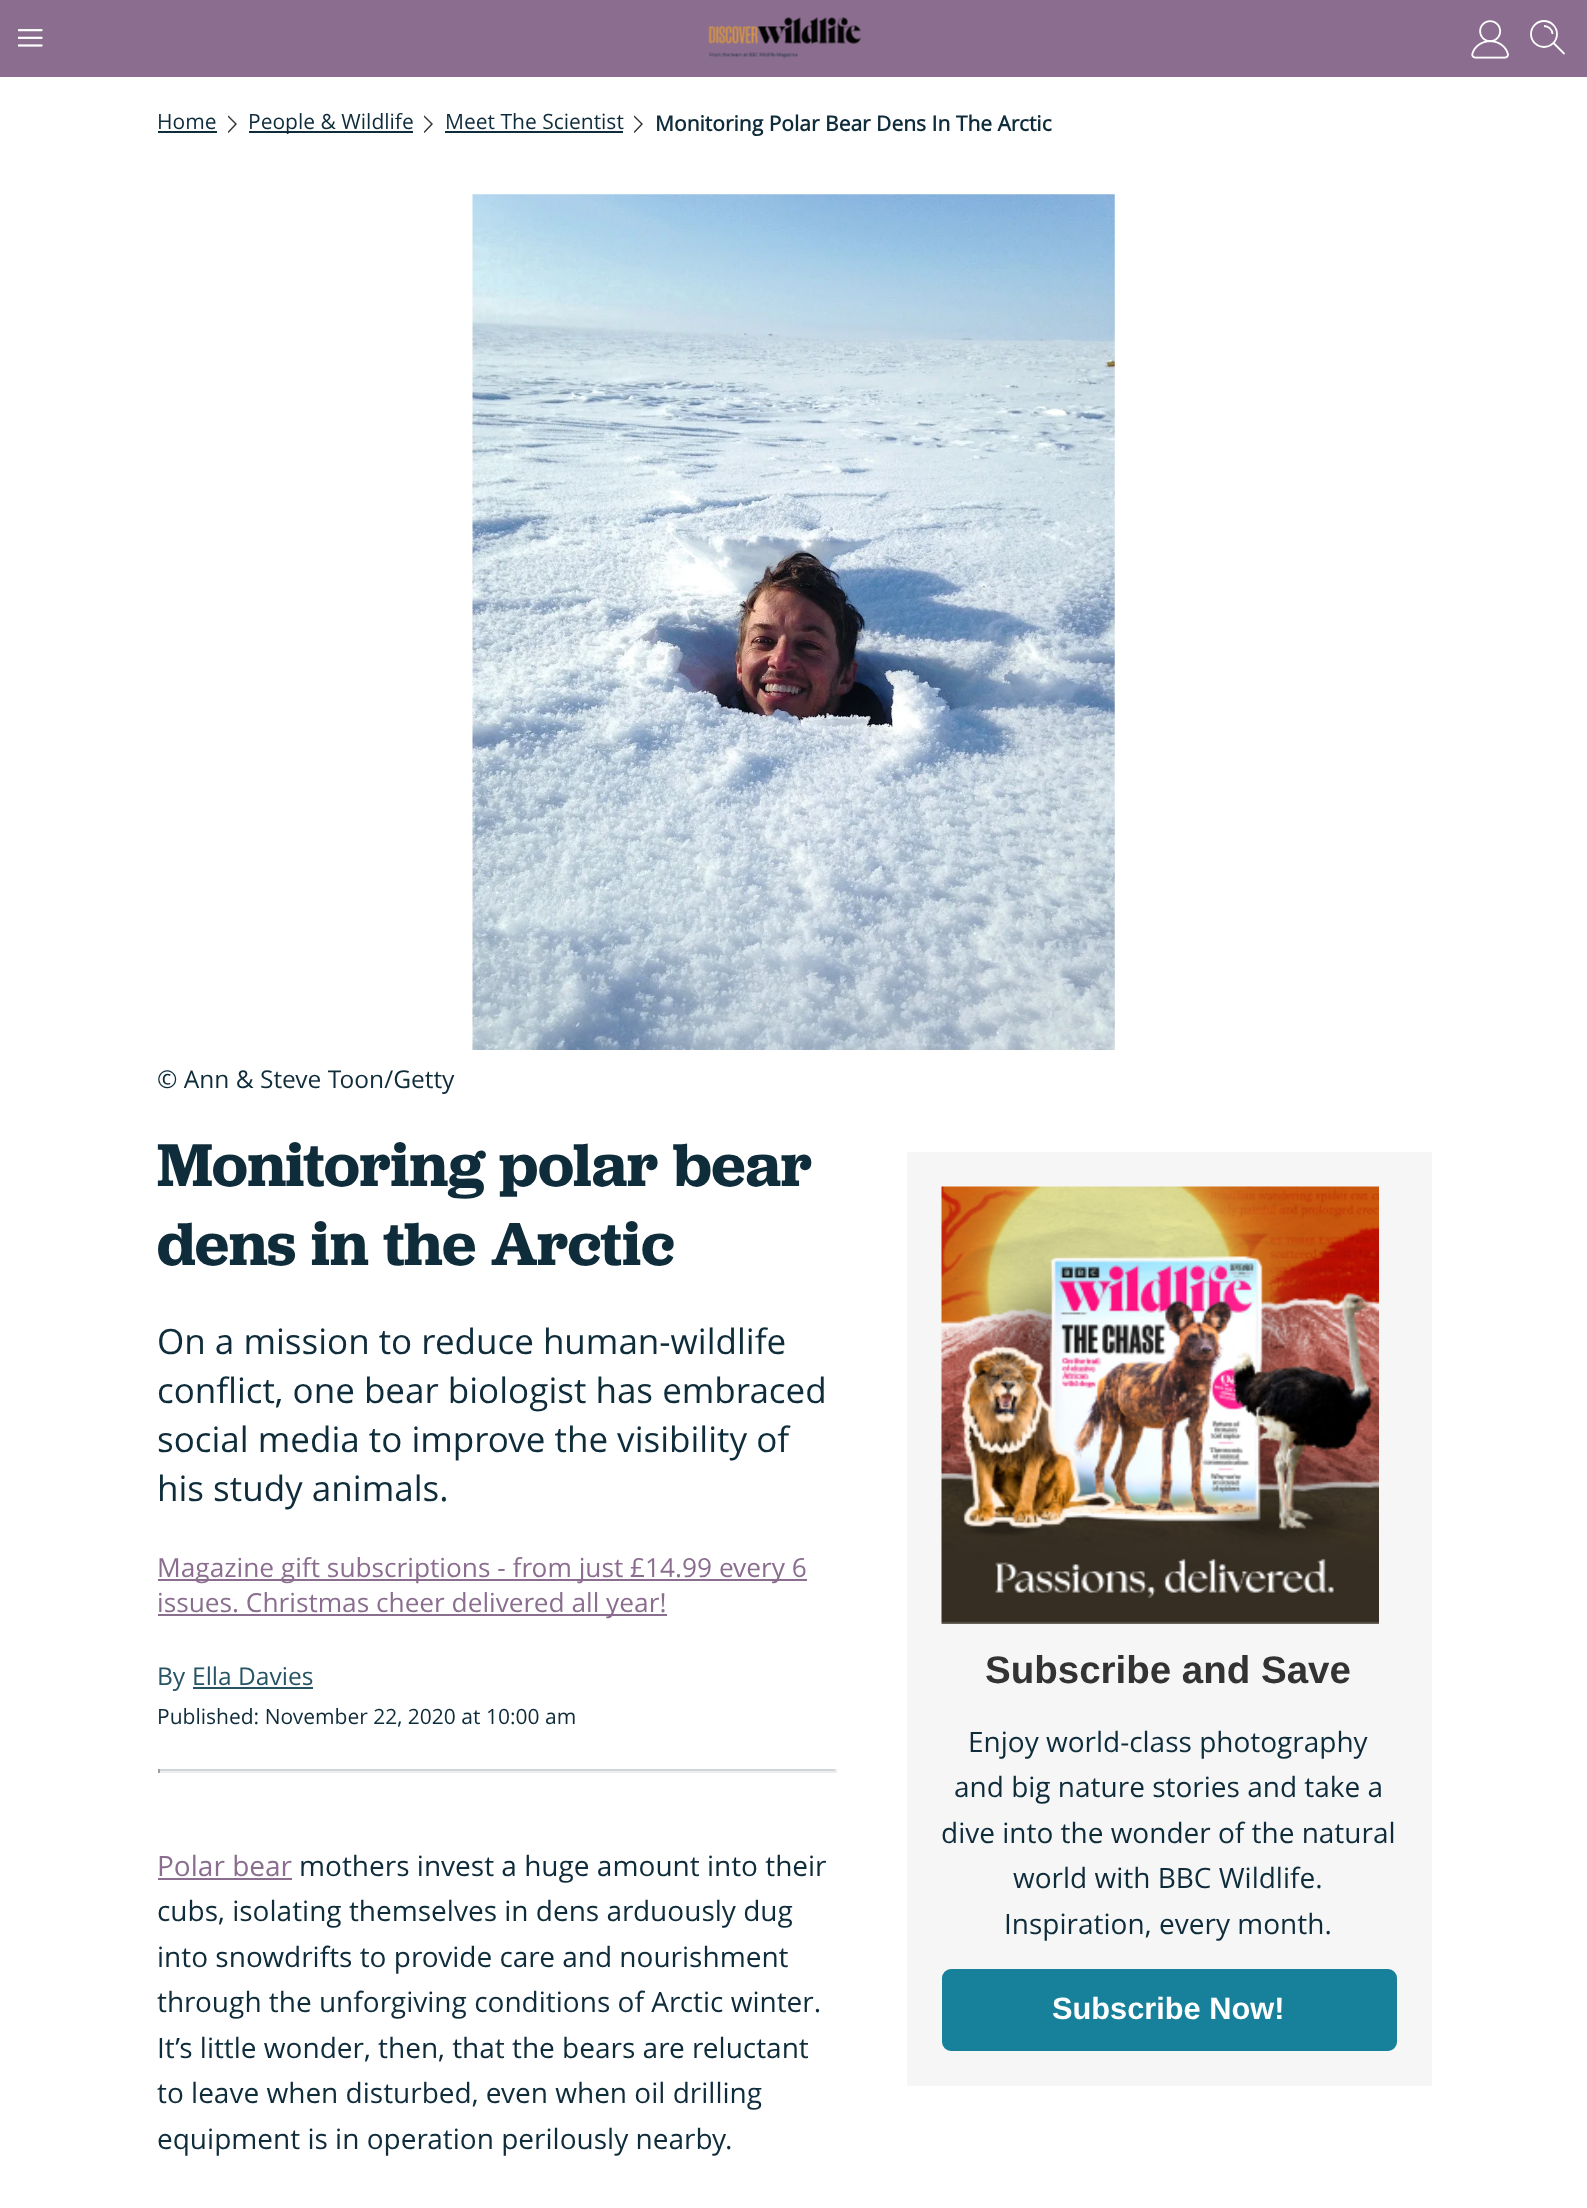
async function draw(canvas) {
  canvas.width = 1587
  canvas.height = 2208
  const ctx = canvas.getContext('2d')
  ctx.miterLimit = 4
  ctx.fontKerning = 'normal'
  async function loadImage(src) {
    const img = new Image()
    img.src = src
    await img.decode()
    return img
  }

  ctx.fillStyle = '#fff'
  ctx.fillRect(0, 0, 1587, 2208)
  ctx.fillStyle = '#8b6e8f'
  ctx.fillRect(0, 0, 1587, 77)
  ctx.drawImage(await loadImage('image0.png'), 18, 29, 25, 18)
  ctx.drawImage(await loadImage('image1.png'), 708, 17, 153, 41)
  ctx.drawImage(await loadImage('image2.png'), 1471, 20, 38, 39)
  ctx.beginPath()
  ctx.arc(1544, 34, 13, 0, 2 * Math.PI)
  ctx.strokeStyle = '#fff'
  ctx.lineWidth = 1.8
  ctx.stroke()
  ctx.beginPath()
  ctx.moveTo(1552.5, 34)
  ctx.bezierCurveTo(1552.5, 29.5, 1548.5, 26, 1544, 26)
  ctx.stroke()
  ctx.beginPath()
  ctx.moveTo(1564.5, 54)
  ctx.lineTo(1553.5, 43)
  ctx.lineJoin = 'round'
  ctx.stroke()
  ctx.font = '21px Open Sans'
  ctx.fillStyle = '#0f2c3b'
  ctx.fillText('Home', 157, 129)
  ctx.fillRect(158, 131, 59, 2)
  ctx.save()
  ctx.beginPath()
  ctx.rect(228, 109, 10, 31)
  ctx.clip()
  ctx.fillStyle = '#343434'
  ctx.beginPath()
  ctx.moveTo(228.5, 133)
  ctx.lineTo(237, 124)
  ctx.lineTo(228.5, 115.5)
  ctx.lineTo(227.5, 116.5)
  ctx.lineTo(235, 124)
  ctx.lineTo(227.5, 132)
  ctx.closePath()
  ctx.fill('evenodd')
  ctx.restore()
  ctx.fillRect(249, 131, 164, 2)
  ctx.fillText('People & Wildlife', 248, 129)
  ctx.save()
  ctx.beginPath()
  ctx.rect(424, 109, 10, 31)
  ctx.clip()
  ctx.fillStyle = '#343434'
  ctx.beginPath()
  ctx.moveTo(424.5, 133)
  ctx.lineTo(433, 124)
  ctx.lineTo(424.5, 115.5)
  ctx.lineTo(423.5, 116.5)
  ctx.lineTo(431, 124)
  ctx.lineTo(423.5, 132)
  ctx.closePath()
  ctx.fill('evenodd')
  ctx.restore()
  ctx.fillText('Meet The Scientist', 445, 129)
  ctx.fillRect(445, 131, 178, 2)
  ctx.save()
  ctx.beginPath()
  ctx.rect(634, 109, 10, 31)
  ctx.clip()
  ctx.fillStyle = '#343434'
  ctx.beginPath()
  ctx.moveTo(634.5, 133)
  ctx.lineTo(643, 124)
  ctx.lineTo(634.5, 115.5)
  ctx.lineTo(633.5, 116.5)
  ctx.lineTo(641, 124)
  ctx.lineTo(633.5, 132)
  ctx.closePath()
  ctx.fill('evenodd')
  ctx.restore()
  ctx.font = 'bold 21px Open Sans'
  ctx.fillText('Monitoring Polar Bear Dens In The Arctic', 655, 131)
  ctx.drawImage(await loadImage('image3.png'), 472, 194, 643, 856)
  ctx.font = '24.5px Open Sans'
  ctx.fillText('© Ann & Steve Toon/Getty', 157, 1088)
  ctx.font = '600 63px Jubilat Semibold'
  ctx.fillText('Monitoring polar bear', 157, 1186)
  ctx.fillText('dens in the Arctic', 157, 1265)
  ctx.font = '35px Open Sans'
  ctx.fillText('On a mission to reduce human-wildlife', 157, 1354)
  ctx.fillText('conflict, one bear biologist has embraced', 157, 1403)
  ctx.fillText('social media to improve the visibility of', 157, 1452)
  ctx.fillText('his study animals.', 157, 1501)
  ctx.fillStyle = '#8b6e8f'
  ctx.fillRect(158, 1579, 649, 2)
  ctx.font = '26.25px Open Sans'
  ctx.fillText('Magazine gift subscriptions - from just £14.99 every 6', 157, 1577)
  ctx.fillRect(158, 1614, 509, 2)
  ctx.fillText('issues. Christmas cheer delivered all year!', 157, 1612)
  ctx.font = '24.5px Open Sans'
  ctx.fillStyle = '#265464'
  ctx.fillText('By', 157, 1685)
  ctx.fillText('Ella Davies', 192, 1685)
  ctx.fillRect(193, 1687, 120, 2)
  ctx.font = '21px Open Sans'
  ctx.fillStyle = '#0f2c3b'
  ctx.fillText('Published: November 22, 2020 at 10:00 am', 157, 1724)
  ctx.fillStyle = '#cfd5d8'
  ctx.fillRect(158, 1769, 679, 2)
  ctx.fillStyle = '#eee'
  ctx.fillRect(835, 1769, 2, 4)
  ctx.fillRect(158, 1771, 679, 2)
  ctx.fillStyle = '#9f9f9f'
  ctx.fillRect(158, 1769, 2, 4)
  ctx.font = '28px Open Sans'
  ctx.fillStyle = '#8b6e8f'
  ctx.fillText('Polar bear', 157, 1876)
  ctx.fillRect(158, 1878, 134, 2)
  ctx.fillStyle = '#0f2c3b'
  ctx.fillText('mothers invest a huge amount into their', 299, 1876)
  ctx.fillText('cubs, isolating themselves in dens arduously dug', 157, 1921)
  ctx.fillText('into snowdrifts to provide care and nourishment', 157, 1967)
  ctx.fillText('through the unforgiving conditions of Arctic winter.', 157, 2012)
  ctx.fillText('It’s little wonder, then, that the bears are reluctant', 157, 2058)
  ctx.fillText('to leave when disturbed, even when oil drilling', 157, 2103)
  ctx.fillText('equipment is in operation perilously nearby.', 157, 2149)
  ctx.fillStyle = '#f6f6f6'
  ctx.fillRect(907, 1152, 525, 934)
  ctx.drawImage(await loadImage('image4.png'), 941, 1186, 438, 438)
  ctx.font = 'bold 38.5px Liberation Sans'
  ctx.fillStyle = '#333'
  ctx.fillText('Subscribe and Save', 985, 1683)
  ctx.font = '28px "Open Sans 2"'
  ctx.fillStyle = '#0f2c3b'
  ctx.fillText('Enjoy world-class photography', 968, 1752)
  ctx.fillText('and big nature stories and take a', 954, 1797)
  ctx.fillText('dive into the wonder of the natural', 941, 1843)
  ctx.fillText('world with BBC Wildlife.', 1013, 1888)
  ctx.fillText('Inspiration, every month.', 1004, 1934)
  ctx.fillStyle = '#17819b'
  ctx.beginPath()
  ctx.roundRect(943, 1970, 453, 80, 8)
  ctx.fill()
  ctx.strokeStyle = '#17819b'
  ctx.lineWidth = 2
  ctx.lineJoin = 'miter'
  ctx.stroke()
  ctx.font = 'bold 30.75px Liberation Sans'
  ctx.fillStyle = '#fff'
  ctx.fillText('Subscribe Now!', 1052, 2019)
}

draw(document.querySelector('canvas'))
